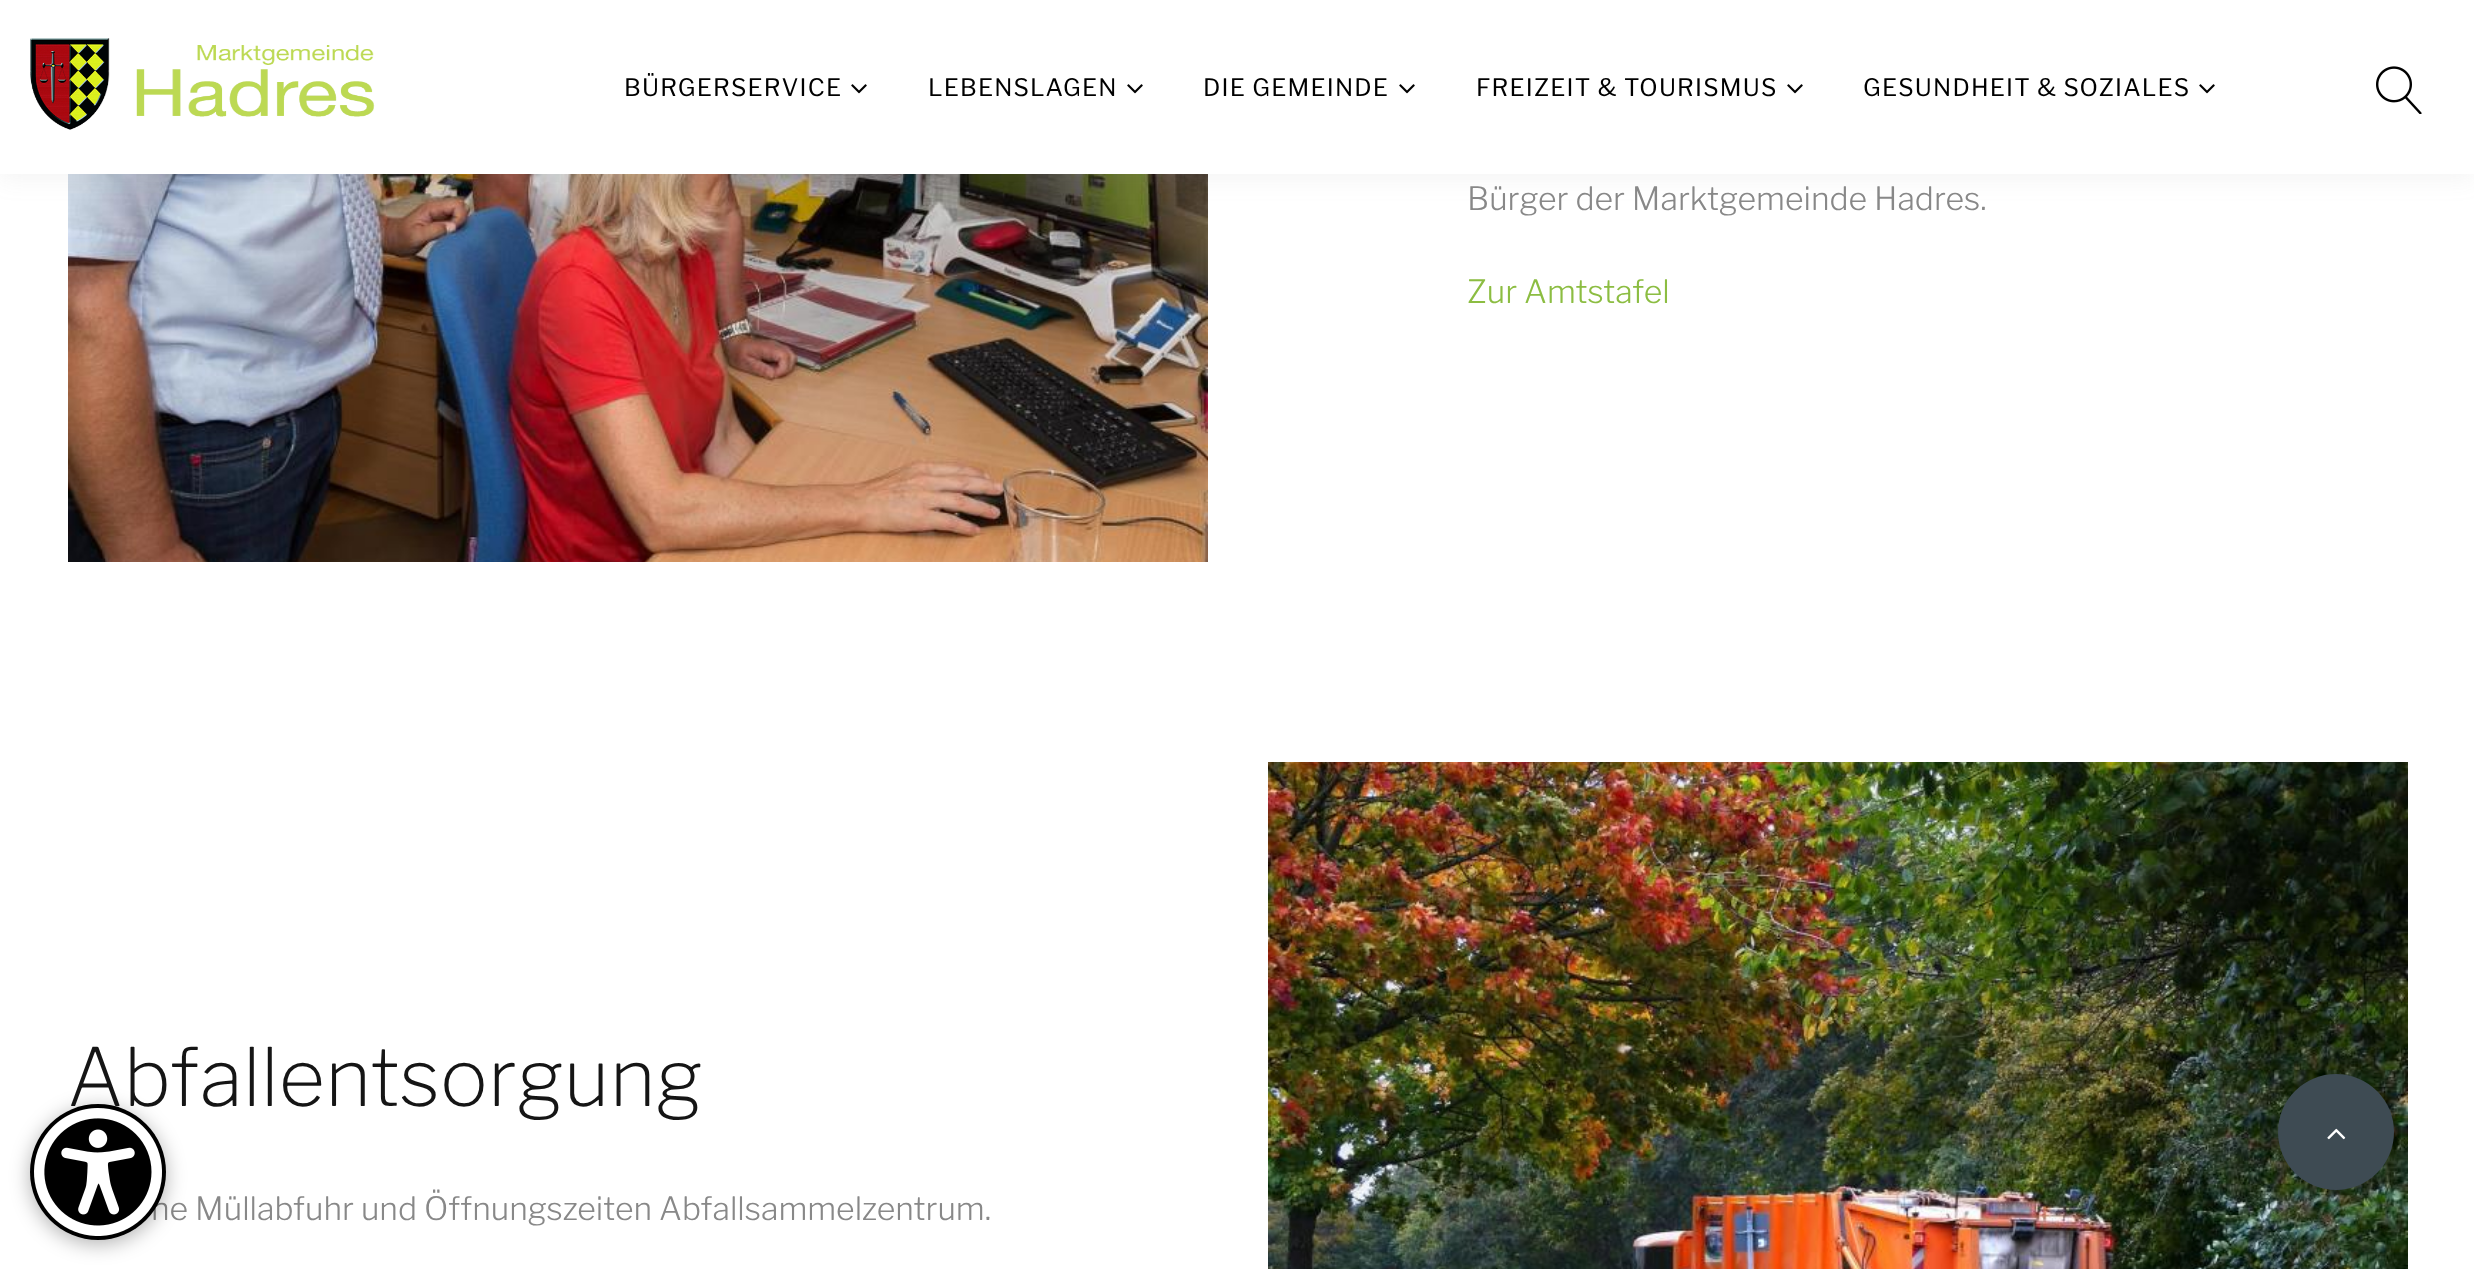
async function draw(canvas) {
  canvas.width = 2474
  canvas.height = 1269
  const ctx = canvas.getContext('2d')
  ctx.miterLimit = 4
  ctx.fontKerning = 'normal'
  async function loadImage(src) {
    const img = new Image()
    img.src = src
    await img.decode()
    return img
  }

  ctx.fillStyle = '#fff'
  ctx.fillRect(0, 0, 2474, 1269)
  ctx.drawImage(await loadImage('image3.png'), 68, 174, 1140, 388)
  ctx.fillStyle = '#8888881a'
  ctx.filter = 'blur(12px)'
  ctx.beginPath()
  ctx.rect(0, 4, 2474, 174)
  ctx.fill()
  ctx.filter = 'none'
  ctx.fillStyle = '#fff'
  ctx.fillRect(0, 0, 2474, 174)
  ctx.drawImage(await loadImage('image0.png'), 30, 38, 345, 92)
  ctx.letterSpacing = '1.2px'
  ctx.font = '100 24px "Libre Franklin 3"'
  ctx.fillStyle = '#000'
  ctx.fillText('BÜRGERSERVICE', 624, 96)
  ctx.drawImage(await loadImage('image1.png'), 851, 84, 16, 10)
  ctx.fillText('LEBENSLAGEN', 928, 96)
  ctx.drawImage(await loadImage('image1.png'), 1127, 84, 16, 10)
  ctx.fillText('DIE GEMEINDE', 1203, 96)
  ctx.drawImage(await loadImage('image1.png'), 1399, 84, 16, 10)
  ctx.fillText('FREIZEIT & TOURISMUS', 1476, 96)
  ctx.drawImage(await loadImage('image1.png'), 1787, 84, 16, 10)
  ctx.fillText('GESUNDHEIT & SOZIALES', 1863, 96)
  ctx.drawImage(await loadImage('image1.png'), 2199, 84, 16, 10)
  ctx.drawImage(await loadImage('image2.png'), 2376, 66, 46, 48)
  ctx.letterSpacing = '0px'
  ctx.font = '100 32px Libre Franklin'
  ctx.fillStyle = '#888'
  ctx.fillText('Bürger der Marktgemeinde Hadres.', 1467, 210)
  ctx.fillStyle = '#8cbd42'
  ctx.fillText('Zur Amtstafel', 1467, 303)
  ctx.font = '100 80px "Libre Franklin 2"'
  ctx.fillStyle = '#151515'
  ctx.fillText('Abfallentsorgung', 67, 1106)
  ctx.font = '100 32px Libre Franklin'
  ctx.fillStyle = '#888'
  ctx.fillText('ne Müllabfuhr und Öffnungszeiten Abfallsammelzentrum.', 151, 1220)
  ctx.drawImage(await loadImage('image4.png'), 1268, 762, 1140, 507)
  ctx.fillStyle = '#3e4b53'
  ctx.beginPath()
  ctx.arc(2336, 1132, 58, 0, 2 * Math.PI)
  ctx.fill()
  ctx.drawImage(await loadImage('image5.png'), 2327, 1128, 19, 12)
  ctx.fillStyle = '#0000004d'
  ctx.filter = 'blur(10px)'
  ctx.beginPath()
  ctx.roundRect(30, 1108, 136, 136, 68)
  ctx.fill()
  ctx.filter = 'none'
  ctx.fillStyle = '#000'
  ctx.beginPath()
  ctx.arc(98, 1172, 68, 0, 2 * Math.PI)
  ctx.fill()
  ctx.drawImage(await loadImage('image6.png'), 34, 1108, 128, 128)
}

draw(document.querySelector('canvas'))
